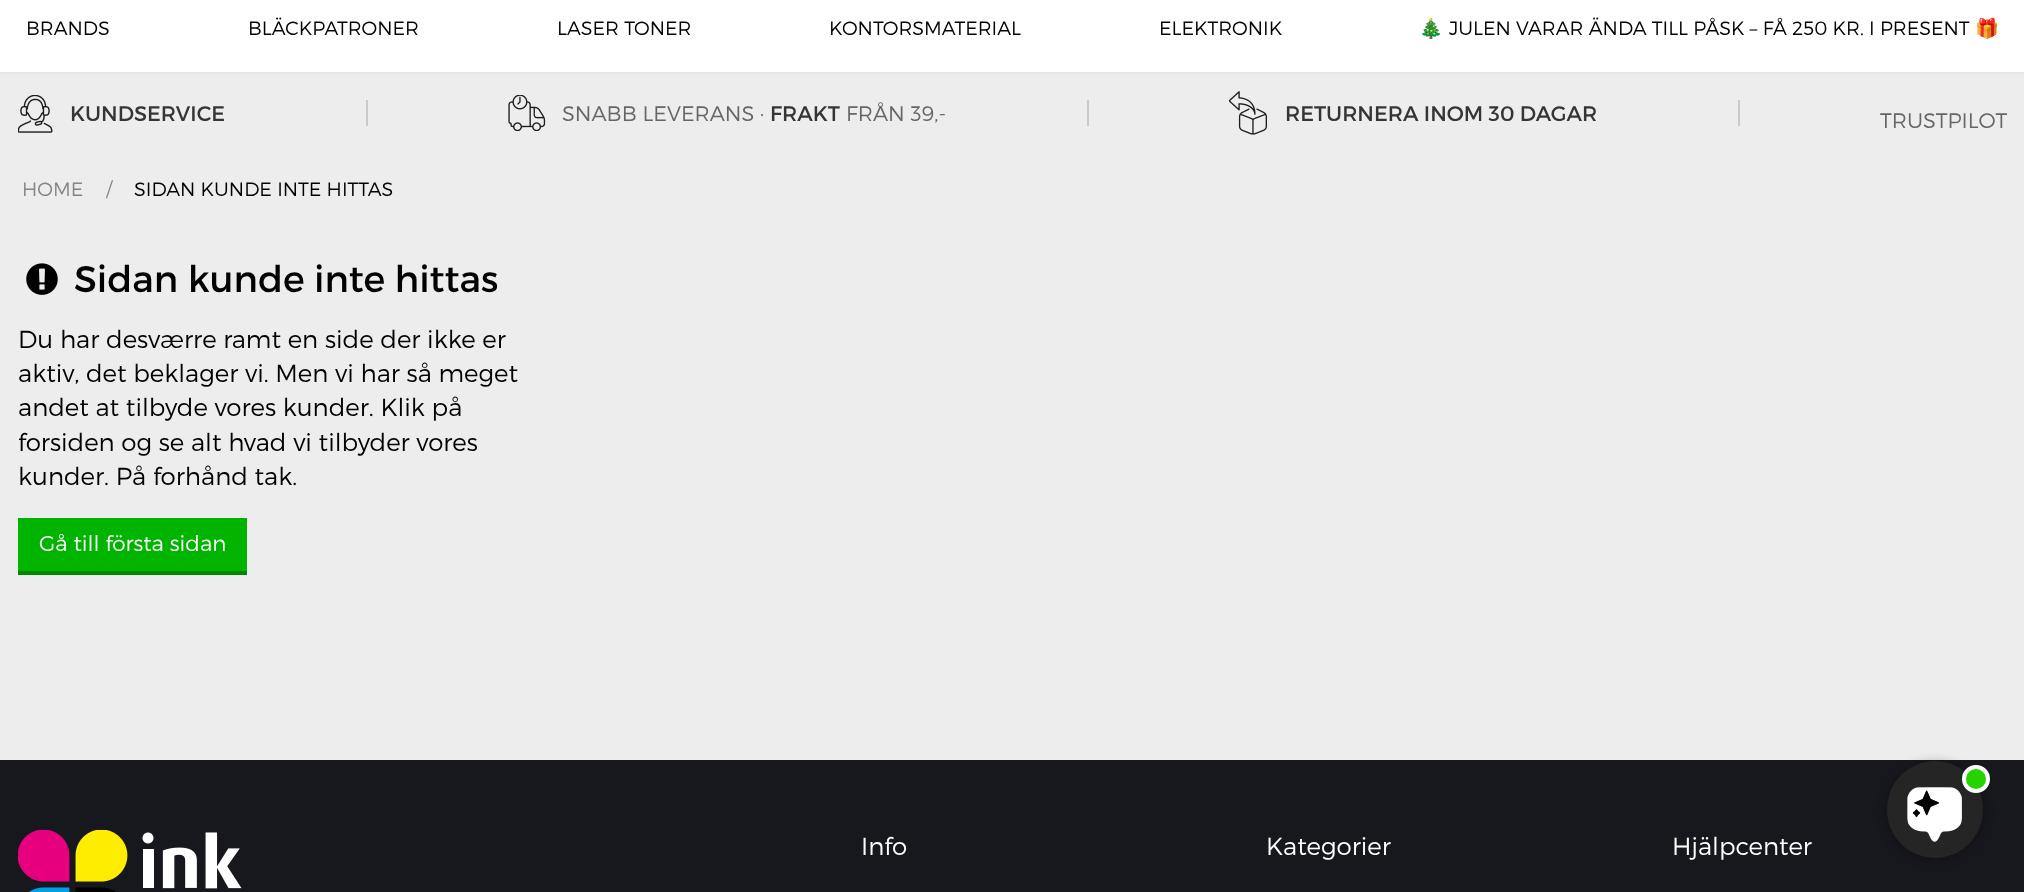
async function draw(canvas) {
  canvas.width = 2024
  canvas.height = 892
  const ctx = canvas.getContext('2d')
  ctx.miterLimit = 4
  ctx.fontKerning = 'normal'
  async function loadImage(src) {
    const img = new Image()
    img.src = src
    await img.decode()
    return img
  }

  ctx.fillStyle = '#fff'
  ctx.fillRect(0, 0, 2024, 892)
  ctx.fillStyle = '#e5e5e5'
  ctx.fillRect(0, 72, 2024, 2)
  ctx.font = '300 19.25px Montserrat'
  ctx.fillStyle = '#000'
  ctx.fillText('BRANDS', 26, 35)
  ctx.fillText('BLÄCKPATRONER', 248, 35)
  ctx.fillText('LASER TONER', 557, 35)
  ctx.fillText('KONTORSMATERIAL', 829, 35)
  ctx.fillText('ELEKTRONIK', 1159, 35)
  ctx.font = '19.25px Noto Color Emoji'
  ctx.fillText('🎄', 1419, 35)
  ctx.font = '300 19.25px Montserrat'
  ctx.fillText('JULEN VARAR ÄNDA TILL PÅSK – FÅ 250 KR. I PRESENT', 1449, 35)
  ctx.font = '19.25px Noto Color Emoji'
  ctx.fillText('🎁', 1975, 35)
  ctx.fillStyle = '#ededed'
  ctx.fillRect(0, 74, 2024, 686)
  ctx.drawImage(await loadImage('image0.png'), 18, 95, 35, 38)
  ctx.font = '21px Montserrat'
  ctx.fillStyle = '#353535'
  ctx.fillText('KUNDSERVICE', 70, 121)
  ctx.fillStyle = '#cacaca'
  ctx.fillRect(366, 100, 2, 26)
  ctx.drawImage(await loadImage('image1.png'), 508, 95, 38, 36)
  ctx.font = '300 21px Montserrat'
  ctx.fillStyle = '#666'
  ctx.fillText('SNABB LEVERANS ·', 562, 121)
  ctx.font = '21px Montserrat'
  ctx.fillStyle = '#353535'
  ctx.fillText('FRAKT', 770, 121)
  ctx.font = '300 21px Montserrat'
  ctx.fillStyle = '#666'
  ctx.fillText('FRÅN 39,-', 846, 121)
  ctx.fillStyle = '#cacaca'
  ctx.fillRect(1087, 100, 2, 26)
  ctx.drawImage(await loadImage('image2.png'), 1229, 91, 38, 44)
  ctx.font = '21px Montserrat'
  ctx.fillStyle = '#353535'
  ctx.fillText('RETURNERA INOM 30 DAGAR', 1285, 121)
  ctx.fillStyle = '#cacaca'
  ctx.fillRect(1738, 100, 2, 26)
  ctx.font = '300 21px Montserrat'
  ctx.fillStyle = '#666'
  ctx.fillText('TRUSTPILOT', 1880, 128)
  ctx.font = '300 19.25px Montserrat'
  ctx.fillStyle = '#858585'
  ctx.fillText('HOME', 22, 196)
  ctx.fillText('/', 106, 196)
  ctx.fillStyle = '#000'
  ctx.fillText('SIDAN KUNDE INTE HITTAS', 134, 196)
  ctx.drawImage(await loadImage('image3.png'), 26, 263, 32, 32)
  ctx.font = '36.75px Montserrat'
  ctx.fillText('Sidan kunde inte hittas', 74, 292)
  ctx.font = '300 24.5px Montserrat'
  ctx.fillText('Du har desværre ramt en side der ikke er', 18, 348)
  ctx.fillText('aktiv, det beklager vi. Men vi har så meget', 18, 382)
  ctx.fillText('andet at tilbyde vores kunder. Klik på', 18, 416)
  ctx.fillText('forsiden og se alt hvad vi tilbyder vores', 18, 451)
  ctx.fillText('kunder. På forhånd tak.', 18, 485)
  ctx.fillStyle = '#00b400'
  ctx.fillRect(18, 518, 229, 53)
  ctx.fillStyle = '#080'
  ctx.fillRect(18, 571, 229, 4)
  ctx.font = '300 21.5px Montserrat'
  ctx.fillStyle = '#fff'
  ctx.fillText('Gå till första sidan', 39, 551)
  ctx.fillStyle = '#17171e'
  ctx.fillRect(0, 760, 2024, 132)
  ctx.drawImage(await loadImage('image4.png'), 18, 830, 224, 62)
  ctx.font = '300 24.5px Montserrat'
  ctx.fillStyle = '#fff'
  ctx.fillText('Info', 861, 855)
  ctx.fillText('Kategorier', 1266, 855)
  ctx.fillText('Hjälpcenter', 1672, 855)
  ctx.fillStyle = '#00000059'
  ctx.filter = 'blur(6px)'
  ctx.beginPath()
  ctx.roundRect(1887, 763, 96, 96, 48)
  ctx.fill()
  ctx.filter = 'none'
  ctx.fillStyle = '#252525'
  ctx.beginPath()
  ctx.roundRect(1887, 761, 96, 97, 48)
  ctx.fill()
  ctx.fillStyle = '#25d300'
  ctx.beginPath()
  ctx.arc(1976, 779, 12, 0, 2 * Math.PI)
  ctx.fill()
  ctx.strokeStyle = '#fff'
  ctx.lineWidth = 4
  ctx.stroke()
  ctx.drawImage(await loadImage('image5.png'), 1907, 787, 55, 55)
}

draw(document.querySelector('canvas'))
